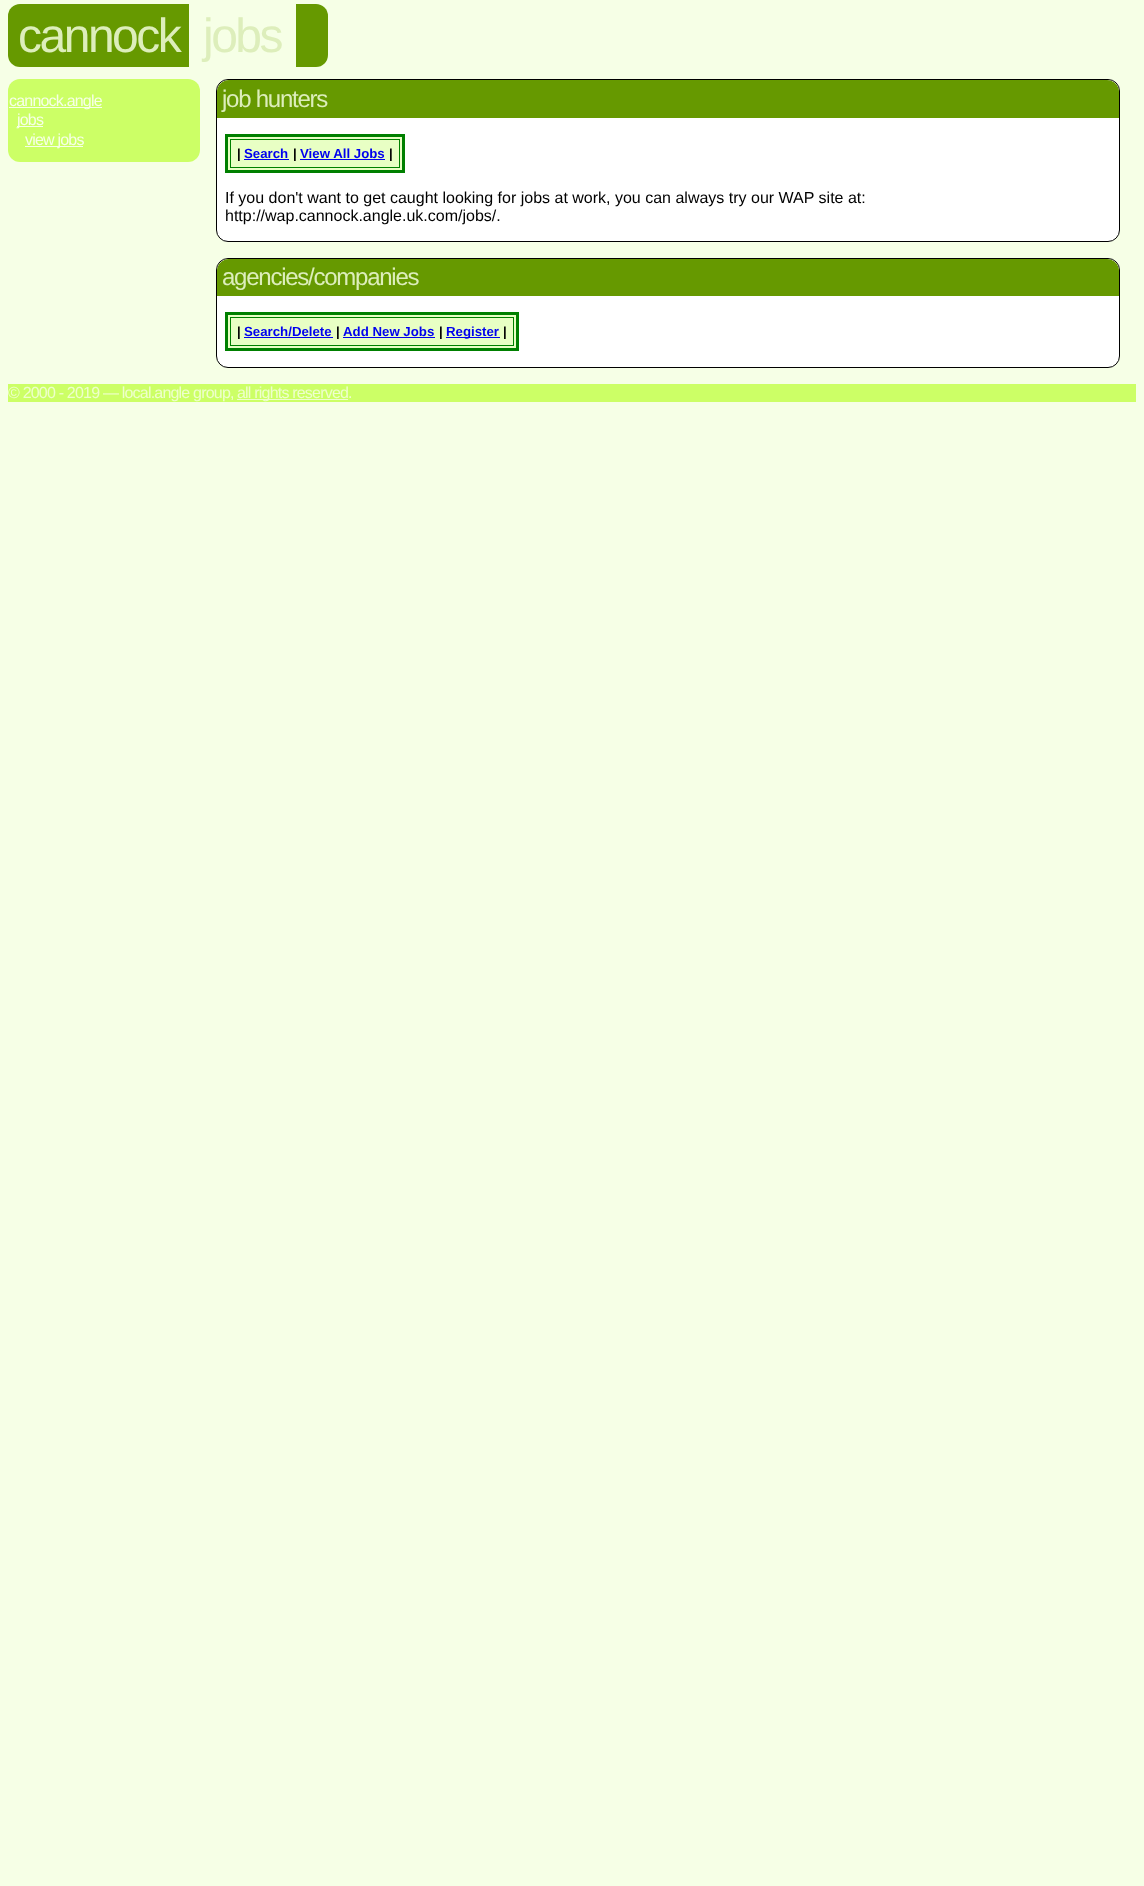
async function draw(canvas) {
  canvas.width = 1144
  canvas.height = 1886
  const ctx = canvas.getContext('2d')
  ctx.miterLimit = 4
  ctx.fontKerning = 'normal'

  ctx.fillStyle = '#f6ffe6'
  ctx.fillRect(0, 0, 1144, 1886)
  ctx.fillStyle = '#690'
  ctx.beginPath()
  ctx.roundRect(8, 4, 181, 63, [12, 0, 0, 12])
  ctx.fill()
  ctx.letterSpacing = '-2.5px'
  ctx.font = '48px Liberation Sans'
  ctx.fillStyle = '#deb'
  ctx.fillText('cannock', 18, 52)
  ctx.fillText('jobs', 203, 52)
  ctx.fillStyle = '#690'
  ctx.beginPath()
  ctx.roundRect(296, 4, 32, 63, [0, 12, 12, 0])
  ctx.fill()
  ctx.fillStyle = '#cf6'
  ctx.beginPath()
  ctx.roundRect(8, 79, 192, 83, 12)
  ctx.fill()
  ctx.fillStyle = '#f6ffe6'
  ctx.fillRect(9, 107, 93, 1)
  ctx.letterSpacing = '-0.8px'
  ctx.font = '16px Liberation Sans'
  ctx.fillText('cannock.angle', 9, 106)
  ctx.fillRect(17, 126, 26, 1)
  ctx.fillText('jobs', 17, 125)
  ctx.fillRect(25, 146, 58, 1)
  ctx.fillText('view jobs', 25, 145)
  ctx.fillStyle = '#fff'
  ctx.beginPath()
  ctx.roundRect(216.5, 79.5, 903, 162, 11.5)
  ctx.fill()
  ctx.strokeStyle = '#000'
  ctx.stroke()
  ctx.fillStyle = '#690'
  ctx.beginPath()
  ctx.roundRect(217, 80, 902, 38, [12, 12, 0, 0])
  ctx.fill()
  ctx.letterSpacing = '-1.25px'
  ctx.font = '24px Liberation Sans'
  ctx.fillStyle = '#deb'
  ctx.fillText('job hunters', 222, 107)
  ctx.fillStyle = '#e8ffc4'
  ctx.beginPath()
  ctx.rect(226.5, 135.5, 177, 36)
  ctx.fill()
  ctx.strokeStyle = '#008000'
  ctx.lineWidth = 3
  ctx.stroke()
  ctx.lineWidth = 1
  ctx.strokeRect(230.5, 139.5, 169, 28)
  ctx.letterSpacing = '0px'
  ctx.font = 'bold 13.25px Liberation Sans'
  ctx.fillStyle = '#000'
  ctx.fillText('|', 237, 158)
  ctx.fillStyle = '#00e'
  ctx.fillText('Search', 244, 158)
  ctx.fillRect(244, 159, 45, 1)
  ctx.fillStyle = '#000'
  ctx.fillText('|', 293, 158)
  ctx.fillStyle = '#00e'
  ctx.fillText('View All Jobs', 300, 158)
  ctx.fillRect(300, 159, 85, 1)
  ctx.fillStyle = '#000'
  ctx.fillText('|', 389, 158)
  ctx.font = '16px Liberation Sans'
  ctx.fillText('If you don\'t want to get caught looking for jobs at work, you can always try our WAP site at:', 225, 203)
  ctx.fillText('http://wap.cannock.angle.uk.com/jobs/.', 225, 221)
  ctx.fillStyle = '#fff'
  ctx.beginPath()
  ctx.roundRect(216.5, 258.5, 903, 109, 11.5)
  ctx.fill()
  ctx.strokeStyle = '#000'
  ctx.stroke()
  ctx.fillStyle = '#690'
  ctx.beginPath()
  ctx.roundRect(217, 259, 902, 37, [12, 12, 0, 0])
  ctx.fill()
  ctx.letterSpacing = '-1.25px'
  ctx.font = '24px Liberation Sans'
  ctx.fillStyle = '#deb'
  ctx.fillText('agencies/companies', 222, 285)
  ctx.fillStyle = '#e8ffc4'
  ctx.beginPath()
  ctx.rect(226.5, 313.5, 291, 36)
  ctx.fill()
  ctx.strokeStyle = '#008000'
  ctx.lineWidth = 3
  ctx.stroke()
  ctx.lineWidth = 1
  ctx.strokeRect(230.5, 317.5, 283, 28)
  ctx.letterSpacing = '0px'
  ctx.font = 'bold 13.25px Liberation Sans'
  ctx.fillStyle = '#000'
  ctx.fillText('|', 237, 336)
  ctx.fillStyle = '#00e'
  ctx.fillText('Search/Delete', 244, 336)
  ctx.fillRect(244, 337, 89, 1)
  ctx.fillStyle = '#000'
  ctx.fillText('|', 336, 336)
  ctx.fillStyle = '#00e'
  ctx.fillText('Add New Jobs', 343, 336)
  ctx.fillRect(343, 337, 92, 1)
  ctx.fillStyle = '#000'
  ctx.fillText('|', 439, 336)
  ctx.fillStyle = '#00e'
  ctx.fillRect(446, 337, 54, 1)
  ctx.fillText('Register', 446, 336)
  ctx.fillStyle = '#000'
  ctx.fillText('|', 503, 336)
  ctx.fillStyle = '#cf6'
  ctx.fillRect(8, 384, 1128, 18)
  ctx.letterSpacing = '-0.8px'
  ctx.font = '16px Liberation Sans'
  ctx.fillStyle = '#efc'
  ctx.fillText('© 2000 - 2019 — local.angle group,', 8, 398)
  ctx.fillRect(237, 399, 111, 1)
  ctx.fillText('all rights reserved.', 237, 398)
}

draw(document.querySelector('canvas'))
